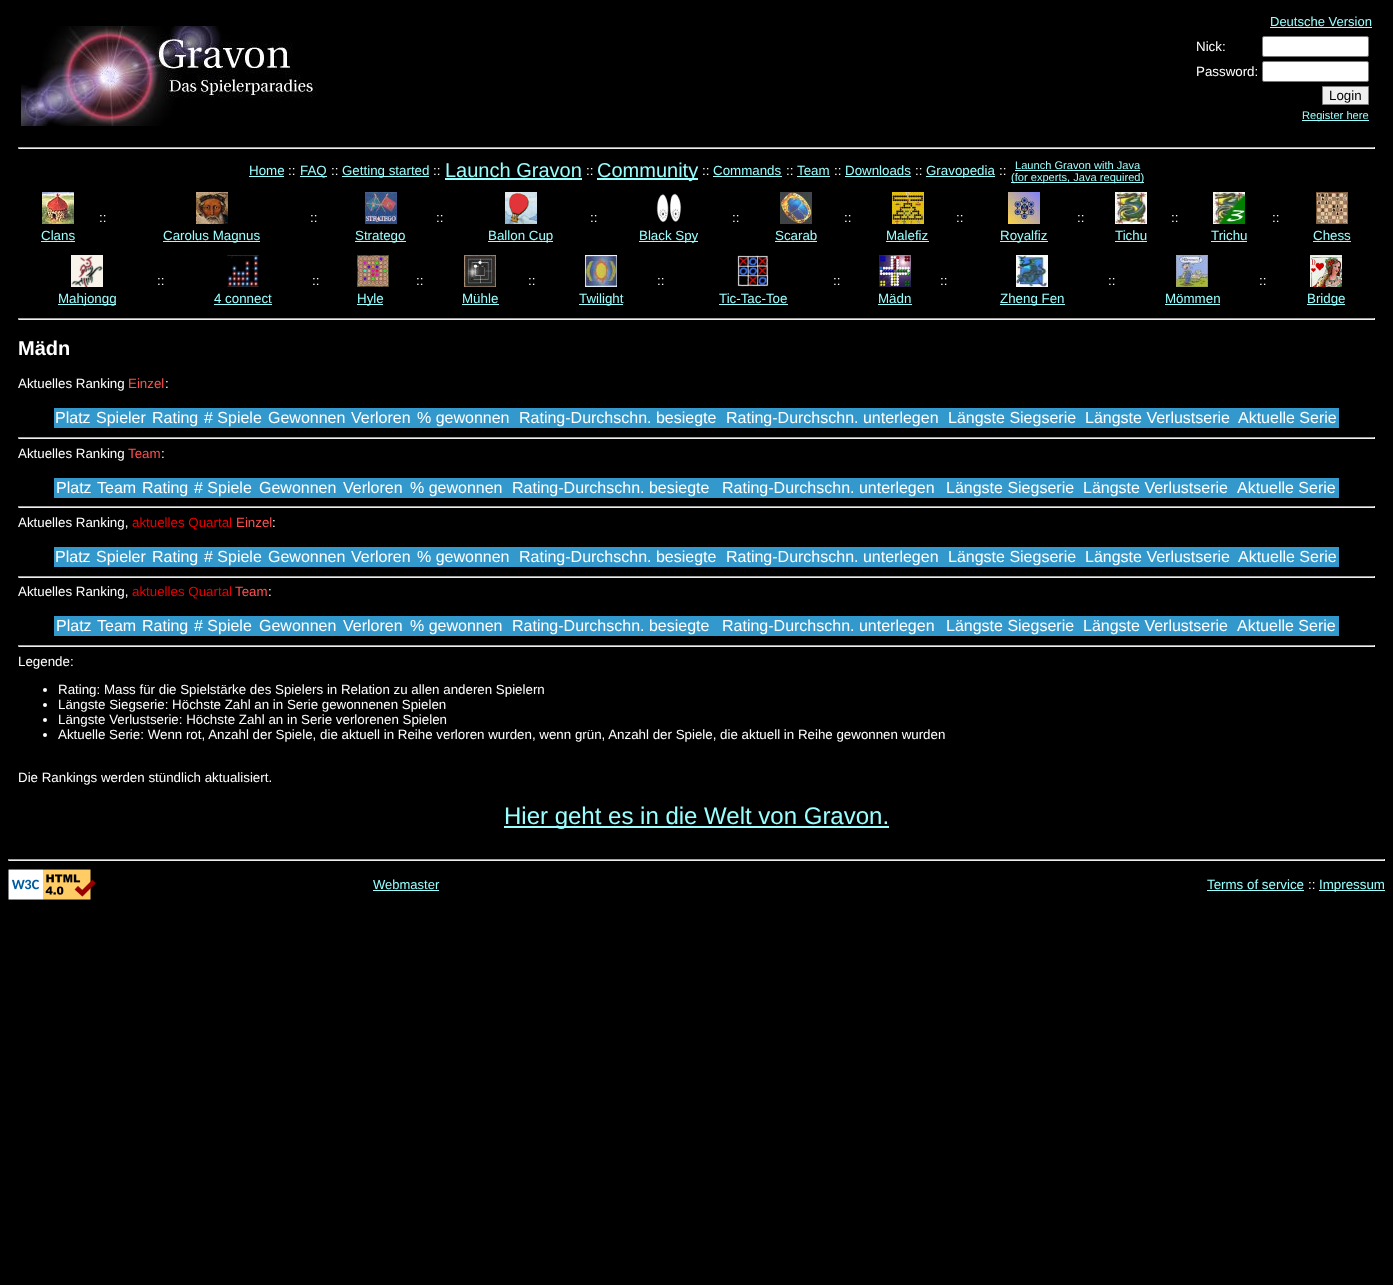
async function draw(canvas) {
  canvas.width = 1393
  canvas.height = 1285
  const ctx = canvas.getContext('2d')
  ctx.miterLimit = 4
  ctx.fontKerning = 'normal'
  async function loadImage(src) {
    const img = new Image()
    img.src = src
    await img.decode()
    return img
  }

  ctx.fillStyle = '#000'
  ctx.fillRect(0, 0, 1393, 1285)
  ctx.font = '13px Liberation Sans'
  ctx.fillStyle = '#9ff'
  ctx.fillText('Deutsche Version', 1270, 26)
  ctx.fillRect(1270, 27, 102, 1)
  ctx.drawImage(await loadImage('image0.png'), 21, 26, 296, 100)
  ctx.font = '13.33px Liberation Sans'
  ctx.fillStyle = '#fff'
  ctx.fillText('Nick:', 1196, 51)
  ctx.beginPath()
  ctx.roundRect(1262.5, 36.5, 106, 20, 1.5)
  ctx.fill()
  ctx.strokeStyle = '#767676'
  ctx.stroke()
  ctx.fillText('Password:', 1196, 76)
  ctx.beginPath()
  ctx.roundRect(1262.5, 61.5, 106, 20, 1.5)
  ctx.fill()
  ctx.stroke()
  ctx.fillStyle = '#efefef'
  ctx.beginPath()
  ctx.rect(1322.5, 86.5, 46, 18)
  ctx.fill()
  ctx.strokeStyle = '#7e7e7e'
  ctx.stroke()
  ctx.fillStyle = '#000'
  ctx.fillText('Login', 1329, 100)
  ctx.fillStyle = '#9ff'
  ctx.fillRect(1302, 120, 67, 1)
  ctx.font = '11.1px Liberation Sans'
  ctx.fillText('Register here', 1302, 119)
  ctx.fillStyle = '#9f9f9f'
  ctx.fillRect(18, 147, 1357, 1)
  ctx.fillStyle = '#eee'
  ctx.fillRect(1374, 147, 1, 2)
  ctx.fillRect(18, 148, 1357, 1)
  ctx.fillStyle = '#9f9f9f'
  ctx.fillRect(18, 147, 1, 2)
  ctx.font = '13.33px Liberation Sans'
  ctx.fillStyle = '#9ff'
  ctx.fillText('Home', 249, 175)
  ctx.fillRect(249, 176, 35, 1)
  ctx.fillStyle = '#fff'
  ctx.fillText('::', 288, 175)
  ctx.fillStyle = '#9ff'
  ctx.fillRect(300, 176, 27, 1)
  ctx.fillText('FAQ', 300, 175)
  ctx.fillStyle = '#fff'
  ctx.fillText('::', 331, 175)
  ctx.fillStyle = '#9ff'
  ctx.fillRect(342, 176, 87, 1)
  ctx.fillText('Getting started', 342, 175)
  ctx.fillStyle = '#fff'
  ctx.fillText('::', 433, 175)
  ctx.font = '20px Liberation Sans'
  ctx.fillStyle = '#9ff'
  ctx.fillText('Launch Gravon', 445, 177)
  ctx.fillRect(445, 178, 137, 2)
  ctx.font = '13.33px Liberation Sans'
  ctx.fillStyle = '#fff'
  ctx.fillText('::', 586, 175)
  ctx.fillStyle = '#9ff'
  ctx.fillRect(597, 178, 101, 2)
  ctx.font = '20px Liberation Sans'
  ctx.fillText('Community', 597, 177)
  ctx.font = '13.33px Liberation Sans'
  ctx.fillStyle = '#fff'
  ctx.fillText('::', 702, 175)
  ctx.fillStyle = '#9ff'
  ctx.fillText('Commands', 713, 175)
  ctx.fillRect(713, 176, 69, 1)
  ctx.fillStyle = '#fff'
  ctx.fillText('::', 786, 175)
  ctx.fillStyle = '#9ff'
  ctx.fillText('Team', 797, 175)
  ctx.fillRect(797, 176, 33, 1)
  ctx.fillStyle = '#fff'
  ctx.fillText('::', 834, 175)
  ctx.fillStyle = '#9ff'
  ctx.fillText('Downloads', 845, 175)
  ctx.fillRect(845, 176, 66, 1)
  ctx.fillStyle = '#fff'
  ctx.fillText('::', 915, 175)
  ctx.fillStyle = '#9ff'
  ctx.fillRect(926, 176, 69, 1)
  ctx.fillText('Gravopedia', 926, 175)
  ctx.fillStyle = '#fff'
  ctx.fillText('::', 999, 175)
  ctx.font = '11.1px Liberation Sans'
  ctx.fillStyle = '#9ff'
  ctx.fillText('Launch Gravon with Java', 1015, 169)
  ctx.fillRect(1015, 170, 125, 1)
  ctx.fillRect(1011, 182, 133, 1)
  ctx.fillText('(for experts, Java required)', 1011, 181)
  ctx.font = '13.33px Liberation Sans'
  ctx.fillStyle = '#fff'
  ctx.fillText('::', 99, 222)
  ctx.fillText('::', 310, 222)
  ctx.fillText('::', 436, 222)
  ctx.fillText('::', 590, 222)
  ctx.fillText('::', 732, 222)
  ctx.fillText('::', 844, 222)
  ctx.fillText('::', 956, 222)
  ctx.fillText('::', 1077, 222)
  ctx.fillText('::', 1171, 222)
  ctx.fillText('::', 1272, 222)
  ctx.drawImage(await loadImage('image1.png'), 42, 192, 32, 32)
  ctx.fillStyle = '#9ff'
  ctx.fillText('Clans', 41, 240)
  ctx.fillRect(41, 241, 34, 1)
  ctx.drawImage(await loadImage('image2.png'), 196, 192, 32, 32)
  ctx.fillRect(163, 241, 97, 1)
  ctx.fillText('Carolus Magnus', 163, 240)
  ctx.drawImage(await loadImage('image3.png'), 365, 192, 32, 32)
  ctx.fillRect(355, 241, 51, 1)
  ctx.fillText('Stratego', 355, 240)
  ctx.drawImage(await loadImage('image4.png'), 505, 192, 32, 32)
  ctx.fillRect(488, 241, 65, 1)
  ctx.fillText('Ballon Cup', 488, 240)
  ctx.drawImage(await loadImage('image5.png'), 656, 193, 26, 30)
  ctx.fillRect(639, 241, 59, 1)
  ctx.fillText('Black Spy', 639, 240)
  ctx.drawImage(await loadImage('image6.png'), 780, 192, 32, 32)
  ctx.fillText('Scarab', 775, 240)
  ctx.fillRect(775, 241, 42, 1)
  ctx.drawImage(await loadImage('image7.png'), 892, 192, 32, 32)
  ctx.fillText('Malefiz', 886, 240)
  ctx.fillRect(886, 241, 43, 1)
  ctx.drawImage(await loadImage('image8.png'), 1008, 192, 32, 32)
  ctx.fillRect(1000, 241, 48, 1)
  ctx.fillText('Royalfiz', 1000, 240)
  ctx.drawImage(await loadImage('image9.png'), 1115, 192, 32, 32)
  ctx.fillText('Tichu', 1115, 240)
  ctx.fillRect(1115, 241, 32, 1)
  ctx.drawImage(await loadImage('image10.png'), 1213, 192, 32, 32)
  ctx.fillText('Trichu', 1211, 240)
  ctx.fillRect(1211, 241, 36, 1)
  ctx.drawImage(await loadImage('image11.png'), 1316, 192, 32, 32)
  ctx.fillText('Chess', 1313, 240)
  ctx.fillRect(1313, 241, 38, 1)
  ctx.fillStyle = '#fff'
  ctx.fillText('::', 157, 285)
  ctx.fillText('::', 312, 285)
  ctx.fillText('::', 416, 285)
  ctx.fillText('::', 528, 285)
  ctx.fillText('::', 657, 285)
  ctx.fillText('::', 833, 285)
  ctx.fillText('::', 940, 285)
  ctx.fillText('::', 1108, 285)
  ctx.fillText('::', 1259, 285)
  ctx.drawImage(await loadImage('image12.png'), 71, 255, 32, 32)
  ctx.fillStyle = '#9ff'
  ctx.fillRect(58, 304, 58, 1)
  ctx.fillText('Mahjongg', 58, 303)
  ctx.drawImage(await loadImage('image13.png'), 227, 255, 32, 32)
  ctx.fillText('4 connect', 214, 303)
  ctx.fillRect(214, 304, 58, 1)
  ctx.drawImage(await loadImage('image14.png'), 357, 255, 32, 32)
  ctx.fillRect(357, 304, 26, 1)
  ctx.fillText('Hyle', 357, 303)
  ctx.drawImage(await loadImage('image15.png'), 464, 255, 32, 32)
  ctx.fillText('Mühle', 462, 303)
  ctx.fillRect(462, 304, 37, 1)
  ctx.drawImage(await loadImage('image16.png'), 585, 255, 32, 32)
  ctx.fillRect(579, 304, 44, 1)
  ctx.fillText('Twilight', 579, 303)
  ctx.drawImage(await loadImage('image17.png'), 737, 255, 32, 32)
  ctx.fillText('Tic-Tac-Toe', 719, 303)
  ctx.fillRect(719, 304, 69, 1)
  ctx.drawImage(await loadImage('image18.png'), 879, 255, 32, 32)
  ctx.fillText('Mädn', 878, 303)
  ctx.fillRect(878, 304, 34, 1)
  ctx.drawImage(await loadImage('image19.png'), 1016, 255, 32, 32)
  ctx.fillRect(1000, 304, 65, 1)
  ctx.fillText('Zheng Fen', 1000, 303)
  ctx.drawImage(await loadImage('image20.png'), 1176, 255, 32, 32)
  ctx.fillText('Mömmen', 1165, 303)
  ctx.fillRect(1165, 304, 55, 1)
  ctx.drawImage(await loadImage('image21.png'), 1310, 255, 32, 32)
  ctx.fillRect(1307, 304, 38, 1)
  ctx.fillText('Bridge', 1307, 303)
  ctx.fillStyle = '#9f9f9f'
  ctx.fillRect(18, 318, 1357, 1)
  ctx.fillStyle = '#eee'
  ctx.fillRect(1374, 318, 1, 2)
  ctx.fillRect(18, 319, 1357, 1)
  ctx.fillStyle = '#9f9f9f'
  ctx.fillRect(18, 318, 1, 2)
  ctx.font = 'bold 20px Liberation Sans'
  ctx.fillStyle = '#fff'
  ctx.fillText('Mädn', 18, 355)
  ctx.font = '13.33px Liberation Sans'
  ctx.fillText('Aktuelles Ranking', 18, 388)
  ctx.fillStyle = '#ff5050'
  ctx.fillText('Einzel', 128, 388)
  ctx.fillStyle = '#fff'
  ctx.fillText(':', 165, 388)
  ctx.fillStyle = '#39c'
  ctx.fillRect(54, 408, 1285, 20)
  ctx.font = '16px Liberation Sans'
  ctx.fillStyle = '#fff'
  ctx.fillText('Platz', 55, 423)
  ctx.fillText('Spieler', 96, 423)
  ctx.fillText('Rating', 152, 423)
  ctx.fillText('# Spiele', 204, 423)
  ctx.fillText('Gewonnen', 268, 423)
  ctx.fillText('Verloren', 351, 423)
  ctx.fillText('% gewonnen', 417, 423)
  ctx.fillText('Rating-Durchschn. besiegte', 519, 423)
  ctx.fillText('Rating-Durchschn. unterlegen', 726, 423)
  ctx.fillText('Längste Siegserie', 948, 423)
  ctx.fillText('Längste Verlustserie', 1085, 423)
  ctx.fillText('Aktuelle Serie', 1238, 423)
  ctx.fillStyle = '#9f9f9f'
  ctx.fillRect(18, 437, 1357, 1)
  ctx.fillStyle = '#eee'
  ctx.fillRect(1374, 437, 1, 2)
  ctx.fillRect(18, 438, 1357, 1)
  ctx.fillStyle = '#9f9f9f'
  ctx.fillRect(18, 437, 1, 2)
  ctx.font = '13.33px Liberation Sans'
  ctx.fillStyle = '#fff'
  ctx.fillText('Aktuelles Ranking', 18, 458)
  ctx.fillStyle = '#ff5050'
  ctx.fillText('Team', 128, 458)
  ctx.fillStyle = '#fff'
  ctx.fillText(':', 161, 458)
  ctx.fillStyle = '#39c'
  ctx.fillRect(54, 478, 1285, 20)
  ctx.font = '16px Liberation Sans'
  ctx.fillStyle = '#fff'
  ctx.fillText('Platz', 56, 493)
  ctx.fillText('Team', 97, 493)
  ctx.fillText('Rating', 142, 493)
  ctx.fillText('# Spiele', 194, 493)
  ctx.fillText('Gewonnen', 259, 493)
  ctx.fillText('Verloren', 343, 493)
  ctx.fillText('% gewonnen', 410, 493)
  ctx.fillText('Rating-Durchschn. besiegte', 512, 493)
  ctx.fillText('Rating-Durchschn. unterlegen', 722, 493)
  ctx.fillText('Längste Siegserie', 946, 493)
  ctx.fillText('Längste Verlustserie', 1083, 493)
  ctx.fillText('Aktuelle Serie', 1237, 493)
  ctx.fillStyle = '#9f9f9f'
  ctx.fillRect(18, 506, 1357, 1)
  ctx.fillStyle = '#eee'
  ctx.fillRect(1374, 506, 1, 2)
  ctx.fillRect(18, 507, 1357, 1)
  ctx.fillStyle = '#9f9f9f'
  ctx.fillRect(18, 506, 1, 2)
  ctx.font = '13.33px Liberation Sans'
  ctx.fillStyle = '#fff'
  ctx.fillText('Aktuelles Ranking,', 18, 527)
  ctx.fillStyle = '#e00'
  ctx.fillText('aktuelles Quartal', 132, 527)
  ctx.fillStyle = '#ff5050'
  ctx.fillText('Einzel', 236, 527)
  ctx.fillStyle = '#fff'
  ctx.fillText(':', 272, 527)
  ctx.fillStyle = '#39c'
  ctx.fillRect(54, 547, 1285, 20)
  ctx.font = '16px Liberation Sans'
  ctx.fillStyle = '#fff'
  ctx.fillText('Platz', 55, 562)
  ctx.fillText('Spieler', 96, 562)
  ctx.fillText('Rating', 152, 562)
  ctx.fillText('# Spiele', 204, 562)
  ctx.fillText('Gewonnen', 268, 562)
  ctx.fillText('Verloren', 351, 562)
  ctx.fillText('% gewonnen', 417, 562)
  ctx.fillText('Rating-Durchschn. besiegte', 519, 562)
  ctx.fillText('Rating-Durchschn. unterlegen', 726, 562)
  ctx.fillText('Längste Siegserie', 948, 562)
  ctx.fillText('Längste Verlustserie', 1085, 562)
  ctx.fillText('Aktuelle Serie', 1238, 562)
  ctx.fillStyle = '#9f9f9f'
  ctx.fillRect(18, 576, 1357, 1)
  ctx.fillStyle = '#eee'
  ctx.fillRect(1374, 576, 1, 2)
  ctx.fillRect(18, 577, 1357, 1)
  ctx.fillStyle = '#9f9f9f'
  ctx.fillRect(18, 576, 1, 2)
  ctx.font = '13.33px Liberation Sans'
  ctx.fillStyle = '#fff'
  ctx.fillText('Aktuelles Ranking,', 18, 596)
  ctx.fillStyle = '#e00'
  ctx.fillText('aktuelles Quartal', 132, 596)
  ctx.fillStyle = '#ff5050'
  ctx.fillText('Team', 235, 596)
  ctx.fillStyle = '#fff'
  ctx.fillText(':', 268, 596)
  ctx.fillStyle = '#39c'
  ctx.fillRect(54, 616, 1285, 20)
  ctx.font = '16px Liberation Sans'
  ctx.fillStyle = '#fff'
  ctx.fillText('Platz', 56, 631)
  ctx.fillText('Team', 97, 631)
  ctx.fillText('Rating', 142, 631)
  ctx.fillText('# Spiele', 194, 631)
  ctx.fillText('Gewonnen', 259, 631)
  ctx.fillText('Verloren', 343, 631)
  ctx.fillText('% gewonnen', 410, 631)
  ctx.fillText('Rating-Durchschn. besiegte', 512, 631)
  ctx.fillText('Rating-Durchschn. unterlegen', 722, 631)
  ctx.fillText('Längste Siegserie', 946, 631)
  ctx.fillText('Längste Verlustserie', 1083, 631)
  ctx.fillText('Aktuelle Serie', 1237, 631)
  ctx.fillStyle = '#9f9f9f'
  ctx.fillRect(18, 645, 1357, 1)
  ctx.fillStyle = '#eee'
  ctx.fillRect(1374, 645, 1, 2)
  ctx.fillRect(18, 646, 1357, 1)
  ctx.fillStyle = '#9f9f9f'
  ctx.fillRect(18, 645, 1, 2)
  ctx.font = '13.33px Liberation Sans'
  ctx.fillStyle = '#fff'
  ctx.fillText('Legende:', 18, 666)
  ctx.beginPath()
  ctx.arc(45, 690, 2, 0, 2 * Math.PI)
  ctx.fill()
  ctx.fillText('Rating: Mass für die Spielstärke des Spielers in Relation zu allen anderen Spielern', 58, 694)
  ctx.beginPath()
  ctx.arc(45, 705, 2, 0, 2 * Math.PI)
  ctx.fill()
  ctx.fillText('Längste Siegserie: Höchste Zahl an in Serie gewonnenen Spielen', 58, 709)
  ctx.beginPath()
  ctx.arc(45, 720, 2, 0, 2 * Math.PI)
  ctx.fill()
  ctx.fillText('Längste Verlustserie: Höchste Zahl an in Serie verlorenen Spielen', 58, 724)
  ctx.beginPath()
  ctx.arc(45, 735, 2, 0, 2 * Math.PI)
  ctx.fill()
  ctx.fillText('Aktuelle Serie: Wenn rot, Anzahl der Spiele, die aktuell in Reihe verloren wurden, wenn grün, Anzahl der Spiele, die aktuell in Reihe gewonnen wurden', 58, 739)
  ctx.fillText('Die Rankings werden stündlich aktualisiert.', 18, 782)
  ctx.fillStyle = '#9ff'
  ctx.fillRect(504, 826, 385, 2)
  ctx.font = '24px Liberation Sans'
  ctx.fillText('Hier geht es in die Welt von Gravon.', 504, 824)
  ctx.fillStyle = '#9f9f9f'
  ctx.fillRect(8, 859, 1377, 1)
  ctx.fillStyle = '#eee'
  ctx.fillRect(1384, 859, 1, 2)
  ctx.fillRect(8, 860, 1377, 1)
  ctx.fillStyle = '#9f9f9f'
  ctx.fillRect(8, 859, 1, 2)
  ctx.drawImage(await loadImage('image22.png'), 8, 869, 88, 31)
  ctx.font = '13px Liberation Sans'
  ctx.fillStyle = '#9ff'
  ctx.fillText('Webmaster', 373, 889)
  ctx.fillRect(373, 890, 66, 1)
  ctx.font = '13.33px Liberation Sans'
  ctx.fillText('Terms of service', 1207, 889)
  ctx.fillRect(1207, 890, 97, 1)
  ctx.fillStyle = '#fff'
  ctx.fillText('::', 1308, 889)
  ctx.fillStyle = '#9ff'
  ctx.fillRect(1319, 890, 66, 1)
  ctx.fillText('Impressum', 1319, 889)
}

draw(document.querySelector('canvas'))
